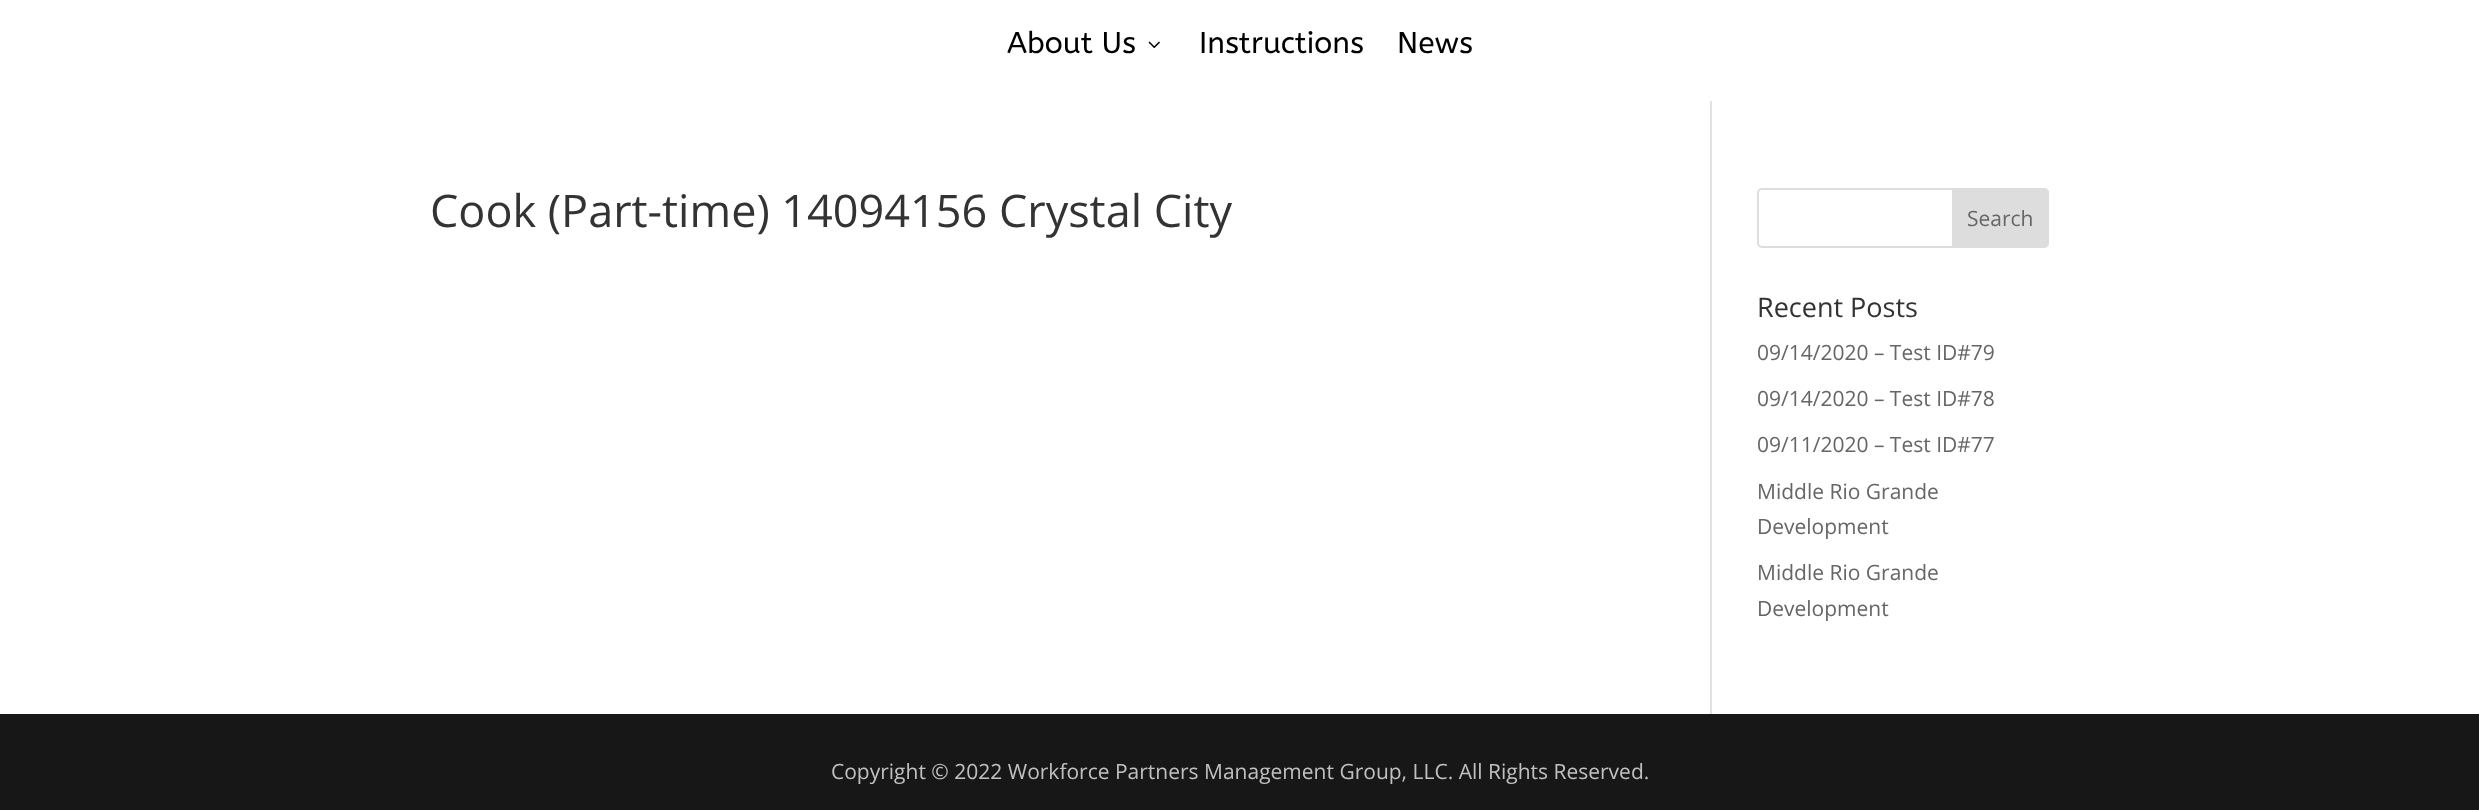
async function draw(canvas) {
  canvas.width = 2479
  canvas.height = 810
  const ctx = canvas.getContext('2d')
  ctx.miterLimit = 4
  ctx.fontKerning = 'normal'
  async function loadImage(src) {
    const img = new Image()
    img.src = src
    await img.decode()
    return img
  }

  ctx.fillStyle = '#fff'
  ctx.fillRect(0, 0, 2479, 810)
  ctx.font = '30px ABeeZee'
  ctx.fillStyle = '#000'
  ctx.fillText('About Us', 1007, 53)
  ctx.drawImage(await loadImage('image0.png'), 1148, 41, 12, 7)
  ctx.fillText('Instructions', 1199, 53)
  ctx.fillText('News', 1397, 53)
  ctx.fillStyle = '#e2e2e2'
  ctx.fillRect(1710, 101, 2, 613)
  ctx.font = '45px Open Sans'
  ctx.fillStyle = '#333'
  ctx.fillText('Cook (Part-time) 14094156 Crystal City', 430, 227)
  ctx.beginPath()
  ctx.roundRect(1758, 189, 290, 58, 4)
  ctx.strokeStyle = '#ddd'
  ctx.lineWidth = 2
  ctx.stroke()
  ctx.fillStyle = '#ddd'
  ctx.beginPath()
  ctx.roundRect(1953, 189, 95, 58, [0, 4, 4, 0])
  ctx.fill()
  ctx.stroke()
  ctx.font = '21px Open Sans'
  ctx.fillStyle = '#666'
  ctx.fillText('Search', 1967, 226)
  ctx.font = '27px Open Sans'
  ctx.fillStyle = '#333'
  ctx.fillText('Recent Posts', 1757, 317)
  ctx.font = '21px Open Sans'
  ctx.fillStyle = '#666'
  ctx.fillText('09/14/2020 – Test ID#79', 1757, 360)
  ctx.fillText('09/14/2020 – Test ID#78', 1757, 406)
  ctx.fillText('09/11/2020 – Test ID#77', 1757, 452)
  ctx.fillText('Middle Rio Grande', 1757, 499)
  ctx.fillText('Development', 1757, 534)
  ctx.fillText('Middle Rio Grande', 1757, 580)
  ctx.fillText('Development', 1757, 616)
  ctx.fillStyle = '#171717'
  ctx.fillRect(0, 714, 2479, 96)
  ctx.fillStyle = '#c0c0c0'
  ctx.fillText('Copyright © 2022 Workforce Partners Management Group, LLC. All Rights Reserved.', 831, 779)
}

draw(document.querySelector('canvas'))
